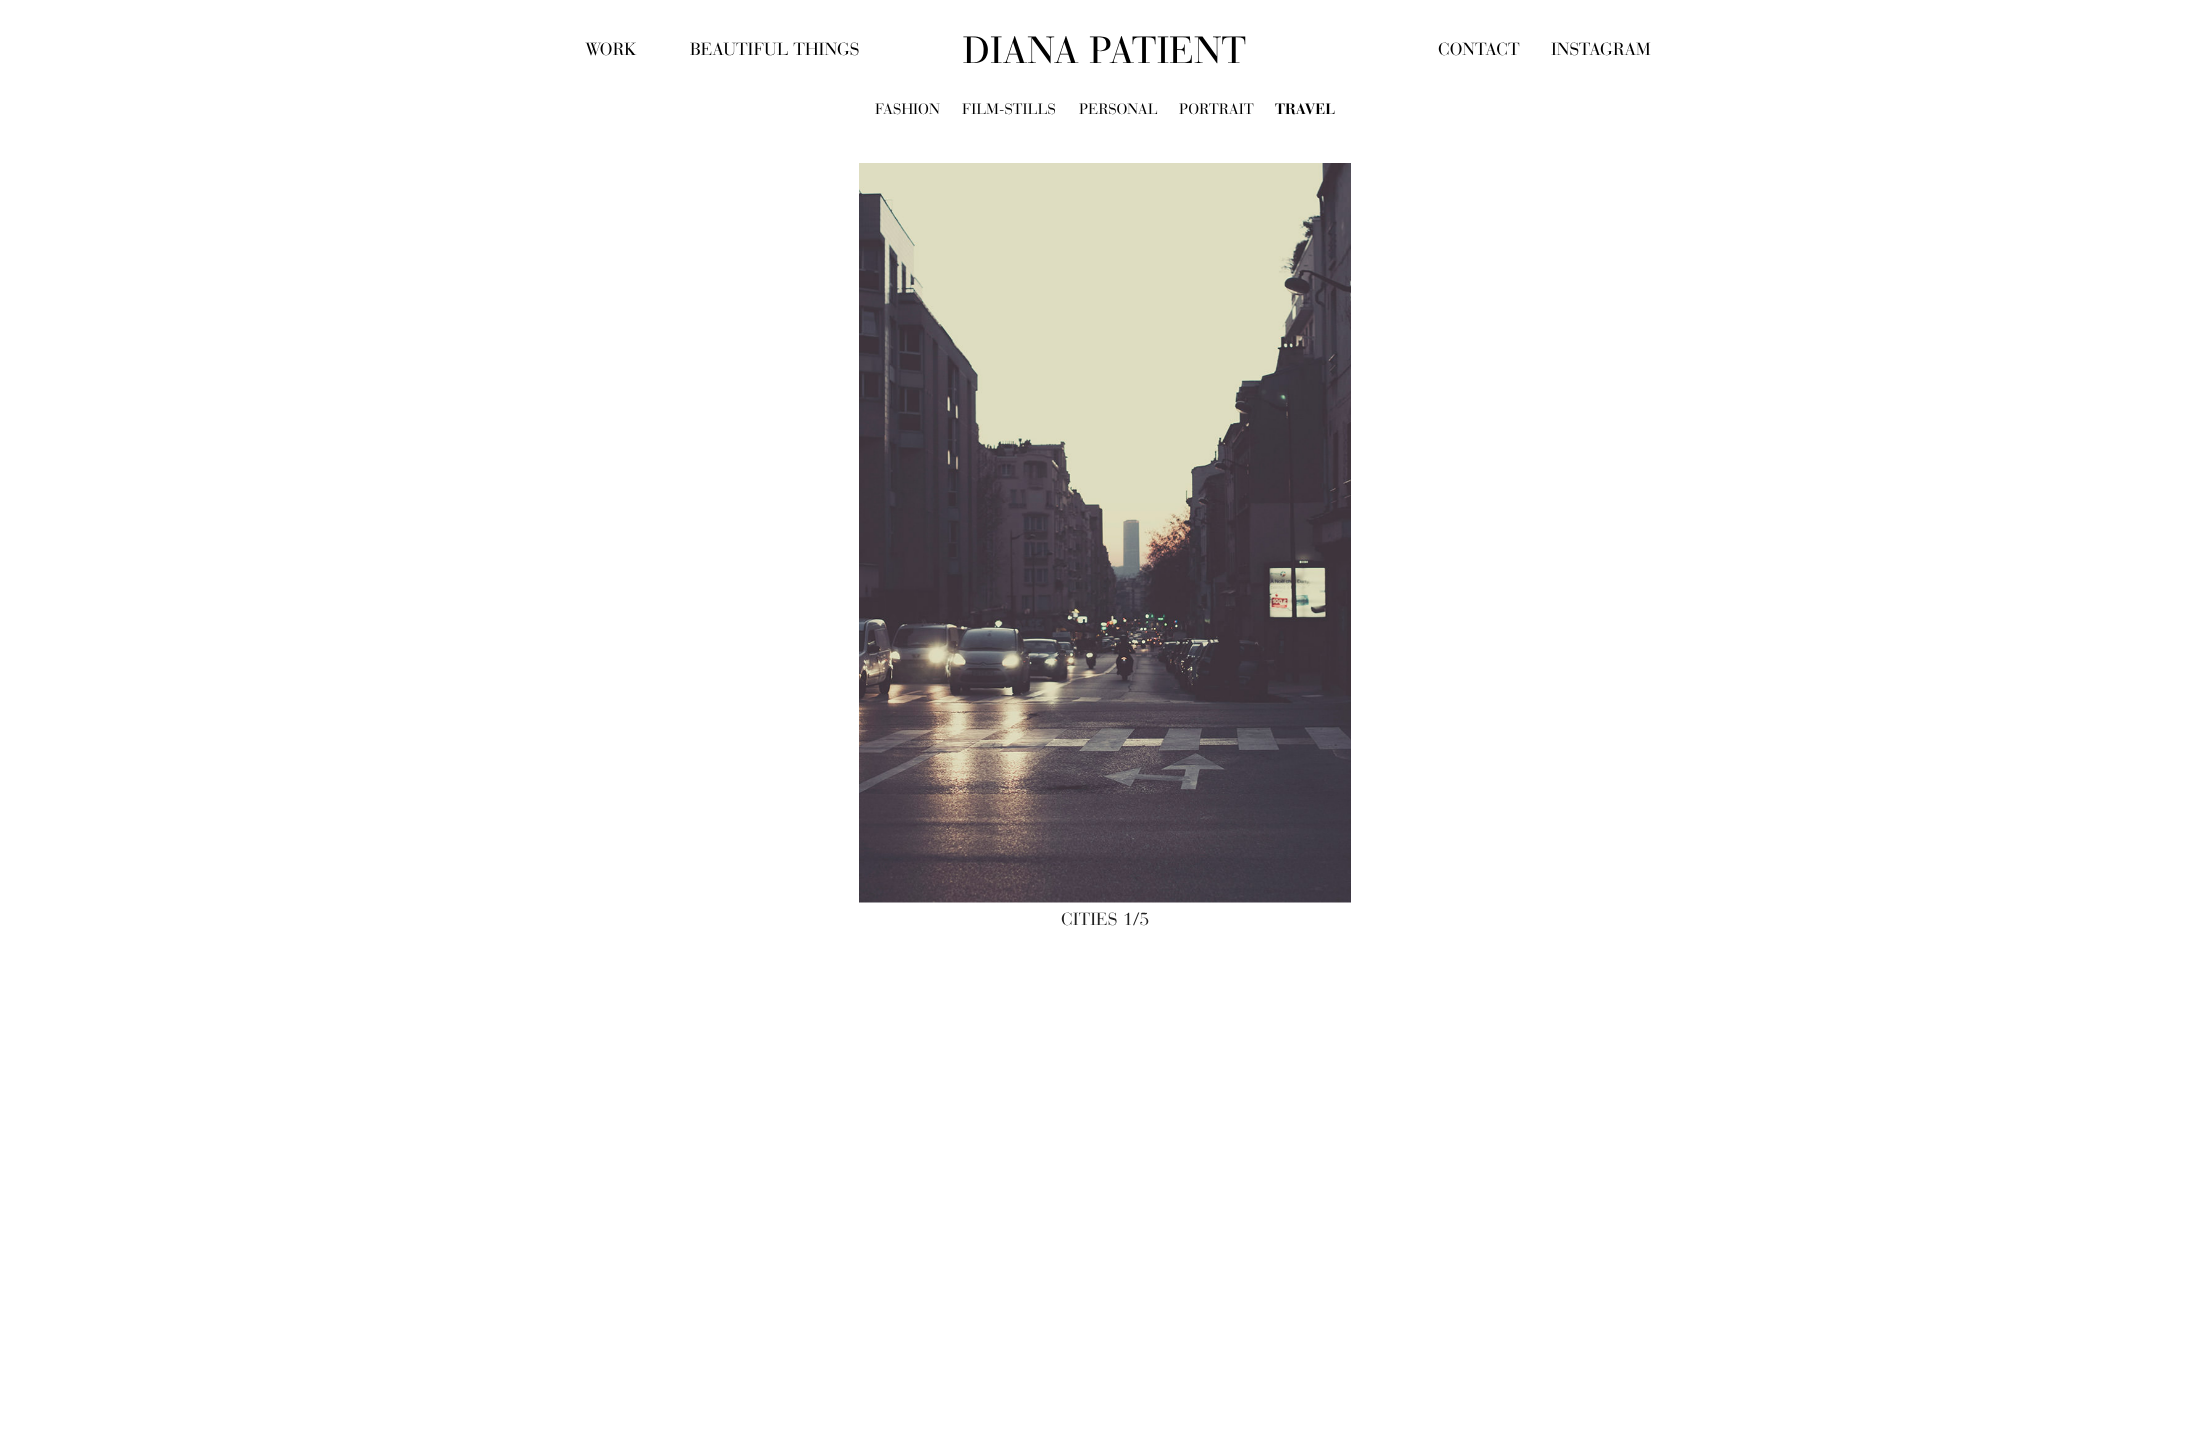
async function draw(canvas) {
  canvas.width = 2209
  canvas.height = 1444
  const ctx = canvas.getContext('2d')
  ctx.miterLimit = 4
  ctx.fontKerning = 'normal'
  async function loadImage(src) {
    const img = new Image()
    img.src = src
    await img.decode()
    return img
  }

  ctx.fillStyle = '#fff'
  ctx.fillRect(0, 0, 2209, 1444)
  ctx.font = '37.5px "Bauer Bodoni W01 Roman"'
  ctx.fillStyle = '#000'
  ctx.fillText('DIANA PATIENT', 963, 63)
  ctx.font = '17.5px "Bauer Bodoni W01 Roman"'
  ctx.fillText('WORK', 585, 55)
  ctx.fillText('BEAUTIFUL THINGS', 690, 55)
  ctx.fillText('CONTACT', 1438, 55)
  ctx.fillText('INSTAGRAM', 1551, 55)
  ctx.font = '15px "Bauer Bodoni W01 Roman"'
  ctx.fillText('FASHION', 875, 114)
  ctx.fillText('FILM-STILLS', 962, 114)
  ctx.fillText('PERSONAL', 1079, 114)
  ctx.fillText('PORTRAIT', 1179, 114)
  ctx.font = 'bold 15px "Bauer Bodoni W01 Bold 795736"'
  ctx.fillText('TRAVEL', 1275, 114)
  ctx.drawImage(await loadImage('image0.png'), 859, 163, 492, 740)
  ctx.font = '17.5px "Bauer Bodoni W01 Roman"'
  ctx.fillStyle = '#222'
  ctx.fillText('CITIES', 1061, 925)
  ctx.fillText('1/5', 1123, 925)
}

draw(document.querySelector('canvas'))
